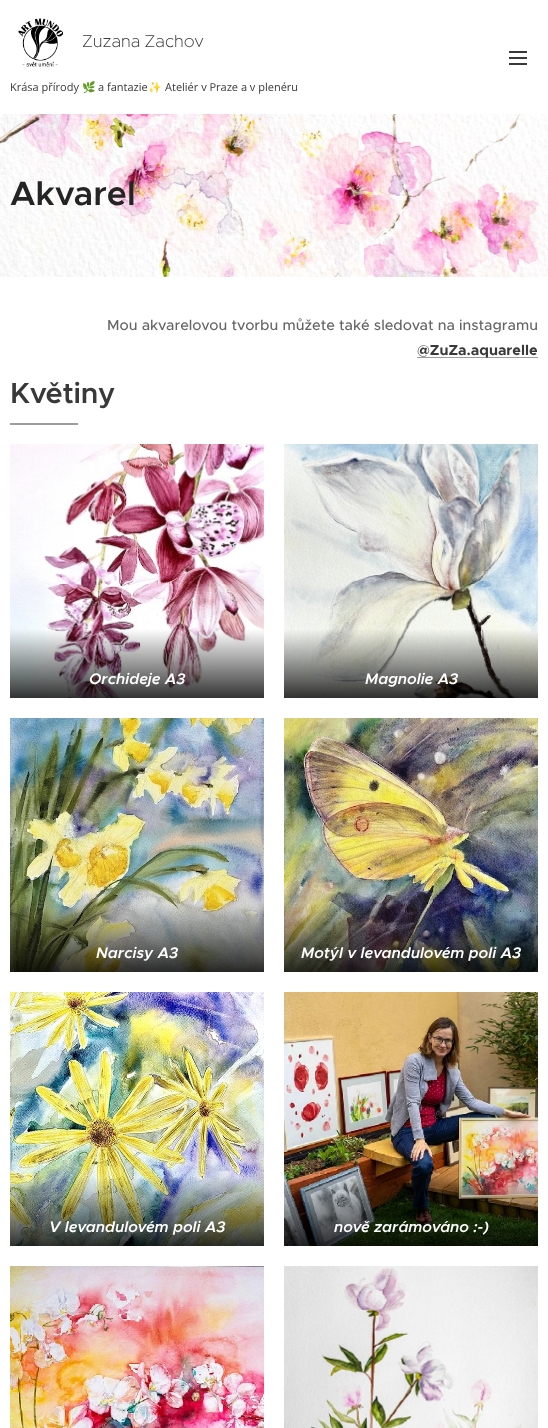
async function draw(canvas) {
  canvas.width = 548
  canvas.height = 1428
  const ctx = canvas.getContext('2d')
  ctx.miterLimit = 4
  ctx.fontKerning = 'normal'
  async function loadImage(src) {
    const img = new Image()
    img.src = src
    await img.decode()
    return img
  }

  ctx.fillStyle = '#fff'
  ctx.fillRect(0, 0, 548, 1428)
  ctx.drawImage(await loadImage('image0.png'), 18, 18, 46, 49)
  ctx.wordSpacing = '-1px'
  ctx.font = '200 17.25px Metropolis'
  ctx.fillStyle = '#393939'
  ctx.fillText('Zuzana Zachov', 82, 47)
  ctx.wordSpacing = '0px'
  ctx.font = '11px Open Sans'
  ctx.fillText('Krása přírody', 10, 91)
  ctx.font = '11px Noto Color Emoji'
  ctx.fillText('🌿', 82, 91)
  ctx.font = '11px Open Sans'
  ctx.fillText('a fantazie', 98, 91)
  ctx.font = '11px Noto Color Emoji'
  ctx.fillText('✨', 148, 91)
  ctx.font = '11px Open Sans'
  ctx.fillText('Ateliér v Praze a v plenéru', 165, 91)
  ctx.fillRect(509, 57, 18, 2)
  ctx.fillRect(509, 51, 18, 2)
  ctx.fillRect(509, 63, 18, 2)
  ctx.drawImage(await loadImage('image1.png'), 0, 114, 548, 163)
  ctx.font = '600 34px Metropolis'
  ctx.fillStyle = '#252424'
  ctx.fillText('Akvarel', 10, 205)
  ctx.font = '500 14.6px Metropolis'
  ctx.fillStyle = '#666'
  ctx.fillText('Mou akvarelovou tvorbu můžete také sledovat na instagramu', 107, 330)
  ctx.fillStyle = '#9c9c9c'
  ctx.fillRect(417, 357, 121, 1)
  ctx.font = 'bold 14.6px Metropolis'
  ctx.fillStyle = '#393939'
  ctx.fillText('@ZuZa.aquarelle', 417, 355)
  ctx.letterSpacing = '-0.25px'
  ctx.font = '600 29px Metropolis'
  ctx.fillText('Květiny', 10, 403)
  ctx.fillStyle = '#9d9d9d'
  ctx.fillRect(10, 423, 68, 2)
  ctx.drawImage(await loadImage('image2.png'), 10, 444, 254, 254)
  ctx.letterSpacing = '0px'
  ctx.font = 'italic 600 15.25px Metropolis'
  ctx.fillStyle = '#fff'
  ctx.fillText('Orchideje A3', 89, 684)
  ctx.drawImage(await loadImage('image3.png'), 284, 444, 254, 254)
  ctx.fillText('Magnolie A3', 365, 684)
  ctx.drawImage(await loadImage('image4.png'), 10, 718, 254, 254)
  ctx.fillText('Narcisy A3', 96, 958)
  ctx.drawImage(await loadImage('image5.png'), 284, 718, 254, 254)
  ctx.fillText('Motýl v levandulovém poli A3', 301, 958)
  ctx.drawImage(await loadImage('image6.png'), 10, 992, 254, 254)
  ctx.fillText('V levandulovém poli A3', 49, 1232)
  ctx.drawImage(await loadImage('image7.png'), 284, 992, 254, 254)
  ctx.fillText('nově zarámováno :-)', 334, 1232)
  ctx.drawImage(await loadImage('image8.png'), 10, 1266, 254, 162)
  ctx.drawImage(await loadImage('image9.png'), 284, 1266, 254, 162)
}

draw(document.querySelector('canvas'))
